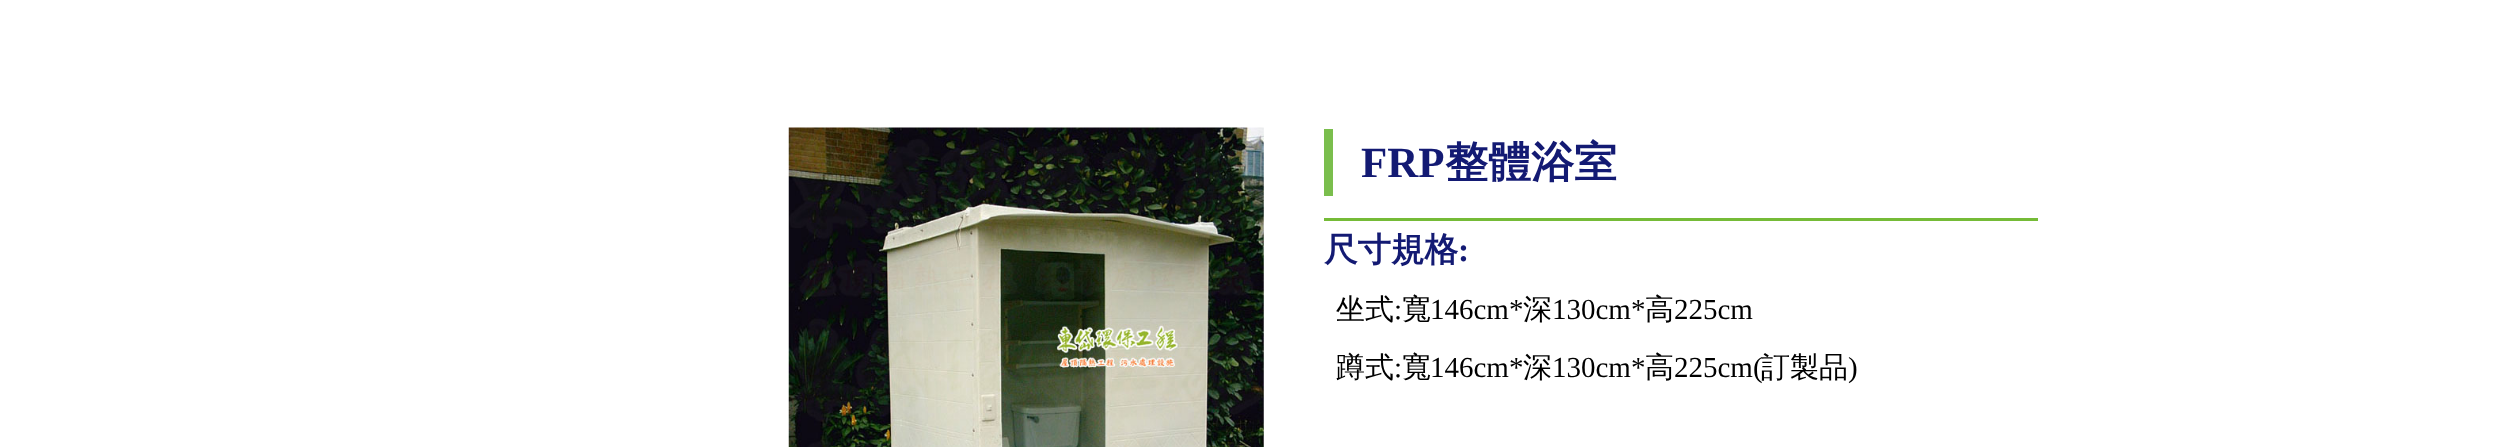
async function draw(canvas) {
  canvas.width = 2515
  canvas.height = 447
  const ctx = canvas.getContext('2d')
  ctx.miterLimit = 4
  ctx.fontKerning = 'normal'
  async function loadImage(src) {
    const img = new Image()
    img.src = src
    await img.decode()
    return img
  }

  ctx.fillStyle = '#fff'
  ctx.fillRect(0, 0, 2515, 447)
  ctx.drawImage(await loadImage('image0.png'), 788, 127, 476, 320)
  ctx.fillStyle = '#7abe4d'
  ctx.fillRect(1324, 129, 9, 67)
  ctx.font = 'bold 43px Liberation Serif'
  ctx.fillStyle = '#131a73'
  ctx.fillText('FRP', 1361, 177)
  ctx.font = 'bold 43px WenQuanYi Zen Hei'
  ctx.fillText('整體浴室', 1445, 177)
  ctx.fillStyle = '#75bb37'
  ctx.fillRect(1324, 218, 714, 3)
  ctx.font = 'bold 33.5px WenQuanYi Zen Hei'
  ctx.fillStyle = '#131a73'
  ctx.fillText('尺寸規格', 1324, 261)
  ctx.font = 'bold 33.5px Liberation Serif'
  ctx.fillText(':', 1458, 261)
  ctx.font = '500 29px WenQuanYi Zen Hei'
  ctx.fillStyle = '#000'
  ctx.fillText('坐式', 1336, 319)
  ctx.font = '29px Liberation Serif'
  ctx.fillText(':', 1394, 319)
  ctx.font = '500 29px WenQuanYi Zen Hei'
  ctx.fillText('寬', 1402, 319)
  ctx.font = '29px Liberation Serif'
  ctx.fillText('146cm*', 1430, 319)
  ctx.font = '500 29px WenQuanYi Zen Hei'
  ctx.fillText('深', 1523, 319)
  ctx.font = '29px Liberation Serif'
  ctx.fillText('130cm*', 1552, 319)
  ctx.font = '500 29px WenQuanYi Zen Hei'
  ctx.fillText('高', 1645, 319)
  ctx.font = '29px Liberation Serif'
  ctx.fillText('225cm', 1674, 319)
  ctx.font = '500 29px WenQuanYi Zen Hei'
  ctx.fillText('蹲式', 1336, 377)
  ctx.font = '29px Liberation Serif'
  ctx.fillText(':', 1394, 377)
  ctx.font = '500 29px WenQuanYi Zen Hei'
  ctx.fillText('寬', 1402, 377)
  ctx.font = '29px Liberation Serif'
  ctx.fillText('146cm*', 1430, 377)
  ctx.font = '500 29px WenQuanYi Zen Hei'
  ctx.fillText('深', 1523, 377)
  ctx.font = '29px Liberation Serif'
  ctx.fillText('130cm*', 1552, 377)
  ctx.font = '500 29px WenQuanYi Zen Hei'
  ctx.fillText('高', 1645, 377)
  ctx.font = '29px Liberation Serif'
  ctx.fillText('225cm(', 1674, 377)
  ctx.font = '500 29px WenQuanYi Zen Hei'
  ctx.fillText('訂製品', 1761, 377)
  ctx.font = '29px Liberation Serif'
  ctx.fillText(')', 1848, 377)
}

draw(document.querySelector('canvas'))
